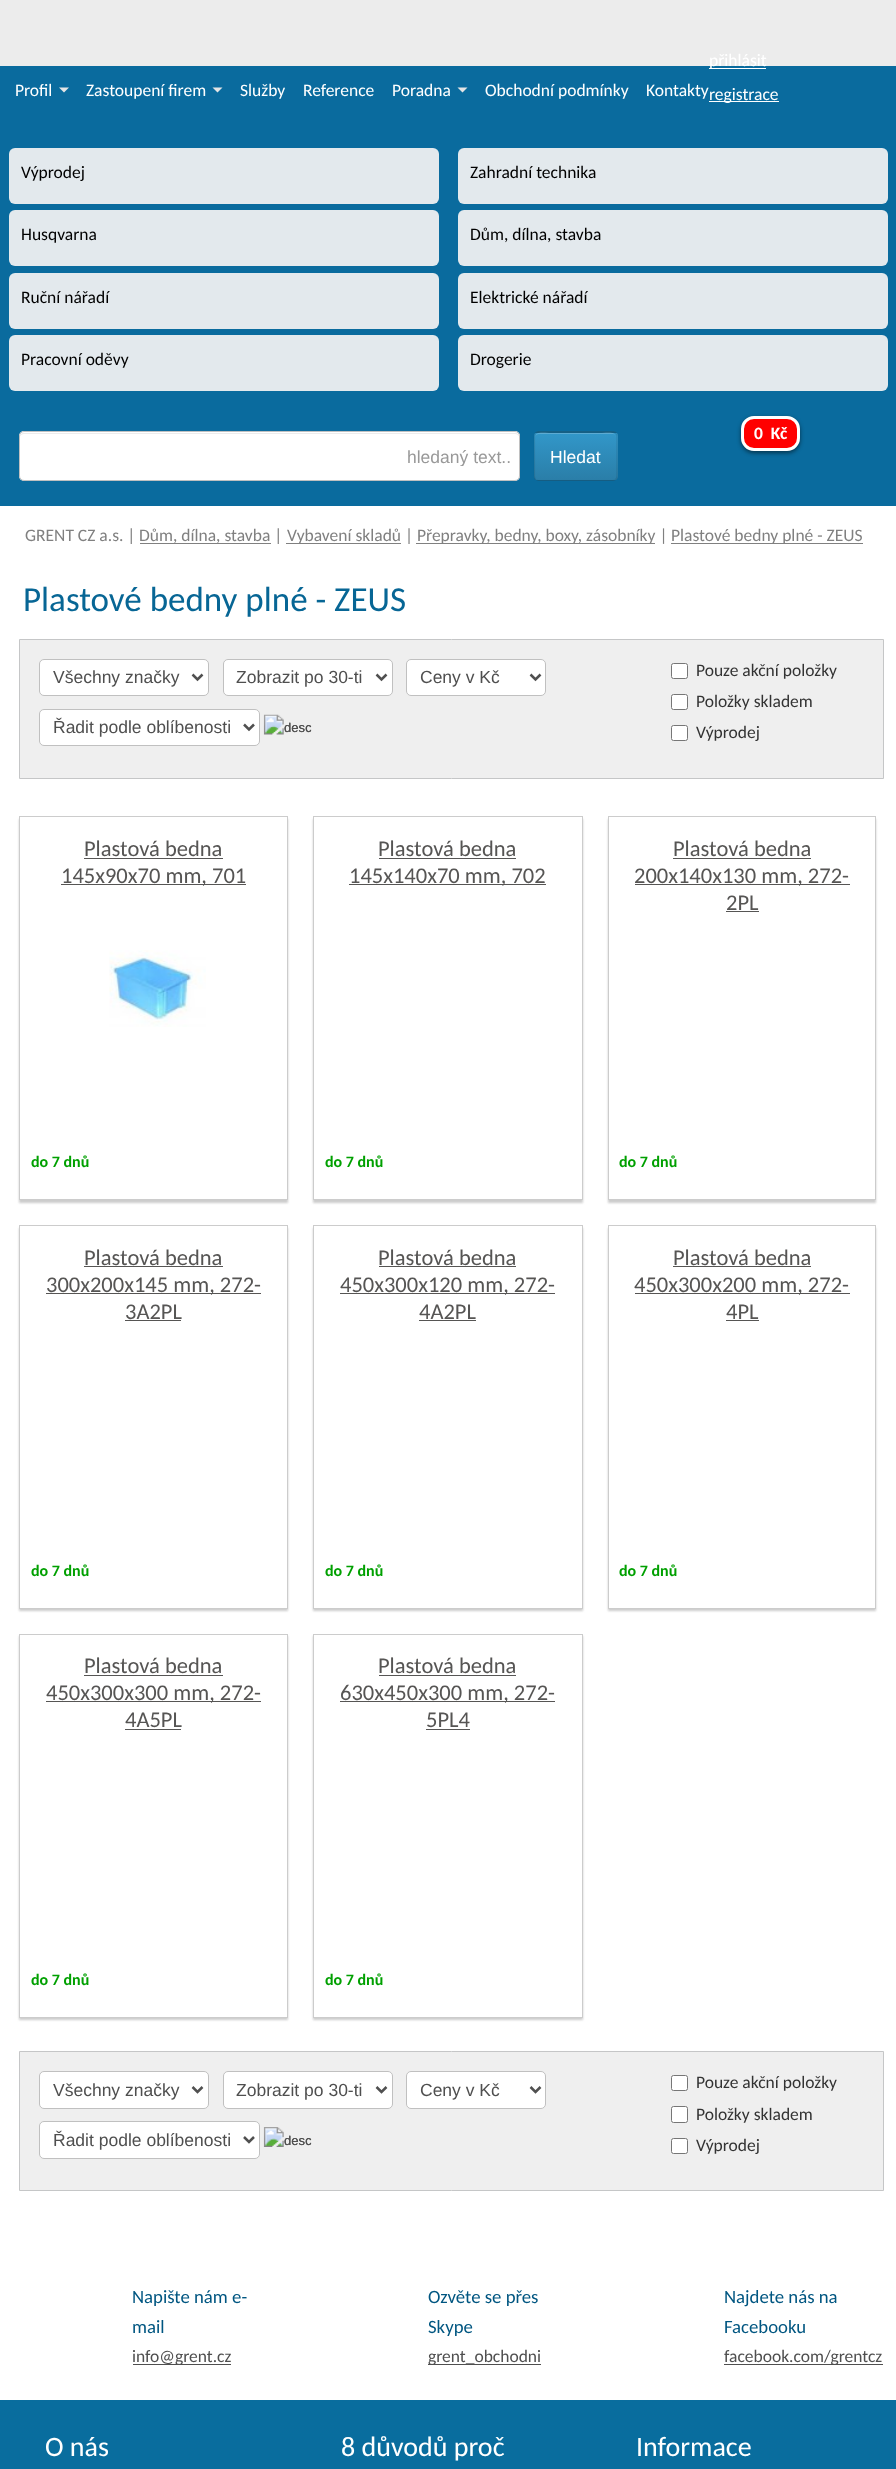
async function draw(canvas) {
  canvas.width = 896
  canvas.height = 2469
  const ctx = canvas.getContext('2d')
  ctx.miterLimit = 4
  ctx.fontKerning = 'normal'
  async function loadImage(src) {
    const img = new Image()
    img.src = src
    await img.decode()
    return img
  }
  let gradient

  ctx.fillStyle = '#ececec'
  ctx.fillRect(0, 0, 896, 2469)
  ctx.fillStyle = '#0a6b9e'
  ctx.fillRect(0, 66, 896, 440)
  ctx.fillStyle = '#fff'
  ctx.fillRect(709, 68, 57, 1)
  ctx.font = '17.5px Carlito'
  ctx.fillText('přihlásit', 709, 66)
  ctx.fillText('Profil', 15, 96)
  ctx.fillStyle = '#e5e5e5'
  ctx.beginPath()
  ctx.moveTo(59, 87.5)
  ctx.lineTo(69, 87.5)
  ctx.lineTo(64, 92.5)
  ctx.closePath()
  ctx.fill()
  ctx.fillStyle = '#fff'
  ctx.fillText('Zastoupení firem', 86, 96)
  ctx.fillStyle = '#e5e5e5'
  ctx.beginPath()
  ctx.moveTo(212.5, 87.5)
  ctx.lineTo(222.5, 87.5)
  ctx.lineTo(217.5, 92.5)
  ctx.closePath()
  ctx.fill()
  ctx.fillStyle = '#fff'
  ctx.fillText('Služby', 240, 96)
  ctx.fillText('Reference', 303, 96)
  ctx.fillText('Poradna', 392, 96)
  ctx.fillStyle = '#e5e5e5'
  ctx.beginPath()
  ctx.moveTo(457.5, 87.5)
  ctx.lineTo(467.5, 87.5)
  ctx.lineTo(462.5, 92.5)
  ctx.closePath()
  ctx.fill()
  ctx.fillStyle = '#fff'
  ctx.fillText('Obchodní podmínky', 485, 96)
  ctx.fillText('Kontakty', 646, 96)
  ctx.fillRect(709, 101, 70, 1)
  ctx.fillText('registrace', 709, 100)
  ctx.fillStyle = '#e3e9ed'
  ctx.beginPath()
  ctx.roundRect(9, 148, 430, 56, 6)
  ctx.fill()
  ctx.fillStyle = '#000'
  ctx.fillText('Výprodej', 21, 178)
  ctx.fillStyle = '#e3e9ed'
  ctx.beginPath()
  ctx.roundRect(458, 148, 430, 56, 6)
  ctx.fill()
  ctx.fillStyle = '#000'
  ctx.fillText('Zahradní technika', 470, 178)
  ctx.fillStyle = '#e3e9ed'
  ctx.beginPath()
  ctx.roundRect(9, 210, 430, 56, 6)
  ctx.fill()
  ctx.fillStyle = '#000'
  ctx.fillText('Husqvarna', 21, 240)
  ctx.fillStyle = '#e3e9ed'
  ctx.beginPath()
  ctx.roundRect(458, 210, 430, 56, 6)
  ctx.fill()
  ctx.fillStyle = '#000'
  ctx.fillText('Dům, dílna, stavba', 470, 240)
  ctx.fillStyle = '#e3e9ed'
  ctx.beginPath()
  ctx.roundRect(9, 273, 430, 56, 6)
  ctx.fill()
  ctx.fillStyle = '#000'
  ctx.fillText('Ruční nářadí', 21, 303)
  ctx.fillStyle = '#e3e9ed'
  ctx.beginPath()
  ctx.roundRect(458, 273, 430, 56, 6)
  ctx.fill()
  ctx.fillStyle = '#000'
  ctx.fillText('Elektrické nářadí', 470, 303)
  ctx.fillStyle = '#e3e9ed'
  ctx.beginPath()
  ctx.roundRect(9, 335, 430, 56, 6)
  ctx.fill()
  ctx.fillStyle = '#000'
  ctx.fillText('Pracovní oděvy', 21, 365)
  ctx.fillStyle = '#e3e9ed'
  ctx.beginPath()
  ctx.roundRect(458, 335, 430, 56, 6)
  ctx.fill()
  ctx.fillStyle = '#000'
  ctx.fillText('Drogerie', 470, 365)
  ctx.fillStyle = '#00000080'
  ctx.filter = 'blur(2px)'
  ctx.beginPath()
  ctx.roundRect(741, 418, 59, 35, 13)
  ctx.fill()
  ctx.filter = 'none'
  ctx.fillStyle = '#f00'
  ctx.beginPath()
  ctx.roundRect(742.5, 417.5, 56, 32, 11.5)
  ctx.fill()
  ctx.strokeStyle = '#fff'
  ctx.lineWidth = 3
  ctx.stroke()
  ctx.font = 'bold 17.5px Carlito'
  ctx.fillStyle = '#fff'
  ctx.fillText('0  Kč', 754, 439)
  ctx.beginPath()
  ctx.roundRect(19, 431, 501, 50, 5)
  ctx.fill()
  ctx.fillStyle = '#ececec'
  ctx.beginPath()
  ctx.moveTo(24, 434)
  ctx.lineTo(515, 434)
  ctx.bezierCurveTo(517, 434, 519, 435, 519, 438)
  ctx.bezierCurveTo(519, 435, 518, 433, 515, 433)
  ctx.lineTo(24, 433)
  ctx.bezierCurveTo(21, 433, 20, 435, 20, 438)
  ctx.bezierCurveTo(20, 435, 22, 434, 24, 434)
  ctx.closePath()
  ctx.fill()
  ctx.beginPath()
  ctx.roundRect(19.5, 431.5, 500, 49, 4.5)
  ctx.strokeStyle = '#c0c0c0'
  ctx.lineWidth = 1
  ctx.stroke()
  ctx.save()
  ctx.beginPath()
  ctx.rect(28, 446, 483, 20)
  ctx.clip()
  ctx.font = '17.5px Liberation Sans'
  ctx.fillStyle = '#999'
  ctx.fillText('hledaný text..', 407, 463)
  ctx.restore()
  ctx.fillStyle = '#176389'
  ctx.beginPath()
  ctx.roundRect(534, 431, 84, 50, 5)
  ctx.fill()
  ctx.save()
  ctx.beginPath()
  ctx.roundRect(534, 431, 84, 50, 5)
  ctx.clip()
  gradient = ctx.createLinearGradient(576, 433, 576, 480)
  gradient.addColorStop(0, '#3297c9')
  gradient.addColorStop(1, '#2a7ea8')
  ctx.fillStyle = gradient
  ctx.fillRect(534, 433, 84, 47)
  ctx.restore()
  ctx.fillStyle = '#ffffff33'
  ctx.beginPath()
  ctx.moveTo(539, 434)
  ctx.lineTo(612, 434)
  ctx.bezierCurveTo(615, 434, 616, 435, 616, 438)
  ctx.bezierCurveTo(616, 430, 605, 433, 600, 433)
  ctx.lineTo(551, 433)
  ctx.bezierCurveTo(546, 433, 535, 430, 535, 438)
  ctx.bezierCurveTo(535, 435, 537, 434, 539, 434)
  ctx.closePath()
  ctx.fill()
  ctx.beginPath()
  ctx.moveTo(535.5, 433)
  ctx.lineTo(538.5, 432)
  ctx.lineTo(613, 432)
  ctx.lineTo(615.5, 433)
  ctx.strokeStyle = '#0000000d'
  ctx.lineWidth = 1.2
  ctx.stroke()
  ctx.beginPath()
  ctx.moveTo(615.5, 433)
  ctx.bezierCurveTo(616.5, 434, 617, 435, 617, 436)
  ctx.lineTo(617, 476)
  ctx.bezierCurveTo(617, 477.5, 616.5, 478.5, 615.5, 479.5)
  ctx.strokeStyle = '#0000001a'
  ctx.stroke()
  ctx.beginPath()
  ctx.moveTo(615.5, 479.5)
  ctx.lineTo(613, 480.5)
  ctx.lineTo(538.5, 480.5)
  ctx.lineTo(535.5, 479.5)
  ctx.strokeStyle = '#0000000d'
  ctx.stroke()
  ctx.beginPath()
  ctx.moveTo(535.5, 479.5)
  ctx.bezierCurveTo(535, 478.5, 534.5, 477.5, 534.5, 476)
  ctx.lineTo(534.5, 436)
  ctx.bezierCurveTo(534.5, 435, 535, 434, 535.5, 433)
  ctx.strokeStyle = '#0000001a'
  ctx.stroke()
  ctx.font = '17.5px Liberation Sans'
  ctx.fillStyle = '#fff'
  ctx.fillText('Hledat', 550, 463)
  ctx.fillRect(0, 506, 896, 1894)
  ctx.font = '17.5px Carlito'
  ctx.fillStyle = '#808080'
  ctx.fillText('GRENT CZ a.s. |', 25, 541)
  ctx.fillRect(140, 543, 131, 1)
  ctx.fillText('Dům, dílna, stavba |', 139, 541)
  ctx.fillRect(286, 543, 115, 1)
  ctx.fillText('Vybavení skladů |', 287, 541)
  ctx.fillRect(416, 543, 239, 1)
  ctx.fillText('Přepravky, bedny, boxy, zásobníky |', 417, 541)
  ctx.fillRect(671, 543, 192, 1)
  ctx.fillText('Plastové bedny plné - ZEUS', 671, 541)
  ctx.font = '35px Carlito'
  ctx.fillStyle = '#076695'
  ctx.fillText('Plastové bedny plné - ZEUS', 23, 611)
  ctx.fillStyle = '#efefef'
  ctx.beginPath()
  ctx.rect(19.5, 639.5, 864, 139)
  ctx.fill()
  ctx.strokeStyle = '#c5c6c7'
  ctx.lineWidth = 1
  ctx.stroke()
  ctx.fillStyle = '#fff'
  ctx.beginPath()
  ctx.roundRect(39.5, 659.5, 169, 36, 4.5)
  ctx.fill()
  ctx.strokeStyle = '#c0c0c0'
  ctx.stroke()
  ctx.beginPath()
  ctx.moveTo(192.5, 674.5)
  ctx.lineTo(197.5, 679.5)
  ctx.lineTo(202.5, 674.5)
  ctx.strokeStyle = '#505050'
  ctx.lineWidth = 2.5
  ctx.stroke()
  ctx.font = '17.5px Liberation Sans'
  ctx.fillStyle = '#4f4f4f'
  ctx.fillText('Všechny značky', 53, 683)
  ctx.fillStyle = '#fff'
  ctx.beginPath()
  ctx.roundRect(223.5, 659.5, 169, 36, 4.5)
  ctx.fill()
  ctx.strokeStyle = '#c0c0c0'
  ctx.lineWidth = 1
  ctx.stroke()
  ctx.beginPath()
  ctx.moveTo(376.5, 674.5)
  ctx.lineTo(381.5, 679.5)
  ctx.lineTo(386.5, 674.5)
  ctx.strokeStyle = '#505050'
  ctx.lineWidth = 2.5
  ctx.stroke()
  ctx.fillStyle = '#4f4f4f'
  ctx.fillText('Zobrazit po 30-ti', 236, 683)
  ctx.fillStyle = '#fff'
  ctx.beginPath()
  ctx.roundRect(406.5, 659.5, 139, 36, 4.5)
  ctx.fill()
  ctx.strokeStyle = '#c0c0c0'
  ctx.lineWidth = 1
  ctx.stroke()
  ctx.beginPath()
  ctx.moveTo(530.5, 674.5)
  ctx.lineTo(535.5, 679.5)
  ctx.lineTo(540.5, 674.5)
  ctx.strokeStyle = '#505050'
  ctx.lineWidth = 2.5
  ctx.stroke()
  ctx.fillStyle = '#4f4f4f'
  ctx.fillText('Ceny v Kč', 420, 683)
  ctx.fillStyle = '#fff'
  ctx.beginPath()
  ctx.roundRect(39.5, 709.5, 220, 36, 4.5)
  ctx.fill()
  ctx.strokeStyle = '#c0c0c0'
  ctx.lineWidth = 1
  ctx.stroke()
  ctx.beginPath()
  ctx.moveTo(244, 724.5)
  ctx.lineTo(249, 729.5)
  ctx.lineTo(254, 724.5)
  ctx.strokeStyle = '#505050'
  ctx.lineWidth = 2.5
  ctx.stroke()
  ctx.fillStyle = '#4f4f4f'
  ctx.fillText('Řadit podle oblíbenosti', 53, 733)
  ctx.drawImage(await loadImage('image0.png'), 263, 714, 49, 21)
  ctx.font = '13px Liberation Sans'
  ctx.fillText('desc', 284, 732)
  ctx.fillStyle = '#fff'
  ctx.beginPath()
  ctx.roundRect(671.5, 663.5, 16, 15, 2)
  ctx.fill()
  ctx.strokeStyle = '#767676'
  ctx.lineWidth = 1
  ctx.stroke()
  ctx.font = '17.5px Carlito'
  ctx.fillStyle = '#333'
  ctx.fillText('Pouze akční položky', 696, 676)
  ctx.fillStyle = '#fff'
  ctx.beginPath()
  ctx.roundRect(671.5, 694.5, 16, 15, 2)
  ctx.fill()
  ctx.stroke()
  ctx.fillStyle = '#333'
  ctx.fillText('Položky skladem', 696, 707)
  ctx.fillStyle = '#fff'
  ctx.beginPath()
  ctx.roundRect(671.5, 725.5, 16, 15, 2)
  ctx.fill()
  ctx.stroke()
  ctx.fillStyle = '#333'
  ctx.fillText('Výprodej', 696, 738)
  ctx.save()
  ctx.beginPath()
  ctx.moveTo(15, 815)
  ctx.lineTo(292, 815)
  ctx.lineTo(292, 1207)
  ctx.lineTo(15, 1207)
  ctx.closePath()
  ctx.moveTo(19, 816)
  ctx.lineTo(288, 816)
  ctx.lineTo(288, 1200)
  ctx.lineTo(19, 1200)
  ctx.closePath()
  ctx.clip('evenodd')
  ctx.fillStyle = '#ccc'
  ctx.filter = 'blur(1px)'
  ctx.beginPath()
  ctx.rect(19, 819, 269, 384)
  ctx.fill()
  ctx.filter = 'none'
  ctx.restore()
  ctx.strokeStyle = '#ccc'
  ctx.strokeRect(19.5, 816.5, 268, 383)
  ctx.font = '22.5px Carlito'
  ctx.fillStyle = '#565554'
  ctx.fillText('Plastová bedna', 84, 856)
  ctx.fillRect(84, 858, 139, 1)
  ctx.fillRect(61, 884, 185, 1)
  ctx.fillText('145x90x70 mm, 701', 61, 883)
  ctx.drawImage(await loadImage('image1.png'), 109, 950, 97, 77)
  ctx.font = 'bold 16px Carlito'
  ctx.fillStyle = '#00a000'
  ctx.fillText('do 7 dnů', 31, 1167)
  ctx.save()
  ctx.beginPath()
  ctx.moveTo(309, 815)
  ctx.lineTo(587, 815)
  ctx.lineTo(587, 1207)
  ctx.lineTo(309, 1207)
  ctx.closePath()
  ctx.moveTo(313, 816)
  ctx.lineTo(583, 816)
  ctx.lineTo(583, 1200)
  ctx.lineTo(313, 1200)
  ctx.closePath()
  ctx.clip('evenodd')
  ctx.fillStyle = '#ccc'
  ctx.filter = 'blur(1px)'
  ctx.beginPath()
  ctx.rect(313, 819, 270, 384)
  ctx.fill()
  ctx.filter = 'none'
  ctx.restore()
  ctx.strokeRect(313.5, 816.5, 269, 383)
  ctx.font = '22.5px Carlito'
  ctx.fillStyle = '#565554'
  ctx.fillText('Plastová bedna', 378, 856)
  ctx.fillRect(379, 858, 137, 1)
  ctx.fillRect(349, 884, 197, 1)
  ctx.fillText('145x140x70 mm, 702', 349, 883)
  ctx.font = 'bold 16px Carlito'
  ctx.fillStyle = '#00a000'
  ctx.fillText('do 7 dnů', 325, 1167)
  ctx.save()
  ctx.beginPath()
  ctx.moveTo(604, 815)
  ctx.lineTo(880, 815)
  ctx.lineTo(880, 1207)
  ctx.lineTo(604, 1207)
  ctx.closePath()
  ctx.moveTo(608, 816)
  ctx.lineTo(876, 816)
  ctx.lineTo(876, 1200)
  ctx.lineTo(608, 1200)
  ctx.closePath()
  ctx.clip('evenodd')
  ctx.fillStyle = '#ccc'
  ctx.filter = 'blur(1px)'
  ctx.beginPath()
  ctx.rect(608, 819, 268, 384)
  ctx.fill()
  ctx.filter = 'none'
  ctx.restore()
  ctx.strokeRect(608.5, 816.5, 267, 383)
  ctx.font = '22.5px Carlito'
  ctx.fillStyle = '#565554'
  ctx.fillText('Plastová bedna', 673, 856)
  ctx.fillRect(673, 858, 138, 1)
  ctx.fillRect(635, 884, 215, 1)
  ctx.fillText('200x140x130 mm, 272-', 634, 883)
  ctx.fillText('2PL', 726, 910)
  ctx.fillRect(726, 911, 33, 1)
  ctx.font = 'bold 16px Carlito'
  ctx.fillStyle = '#00a000'
  ctx.fillText('do 7 dnů', 619, 1167)
  ctx.save()
  ctx.beginPath()
  ctx.moveTo(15, 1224)
  ctx.lineTo(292, 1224)
  ctx.lineTo(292, 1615)
  ctx.lineTo(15, 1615)
  ctx.closePath()
  ctx.moveTo(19, 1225)
  ctx.lineTo(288, 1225)
  ctx.lineTo(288, 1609)
  ctx.lineTo(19, 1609)
  ctx.closePath()
  ctx.clip('evenodd')
  ctx.fillStyle = '#ccc'
  ctx.filter = 'blur(1px)'
  ctx.beginPath()
  ctx.rect(19, 1228, 269, 383)
  ctx.fill()
  ctx.filter = 'none'
  ctx.restore()
  ctx.strokeRect(19.5, 1225.5, 268, 383)
  ctx.font = '22.5px Carlito'
  ctx.fillStyle = '#565554'
  ctx.fillText('Plastová bedna', 84, 1265)
  ctx.fillRect(84, 1266, 139, 1)
  ctx.fillRect(46, 1293, 215, 1)
  ctx.fillText('300x200x145 mm, 272-', 46, 1292)
  ctx.fillText('3A2PL', 125, 1319)
  ctx.fillRect(125, 1320, 56, 1)
  ctx.font = 'bold 16px Carlito'
  ctx.fillStyle = '#00a000'
  ctx.fillText('do 7 dnů', 31, 1576)
  ctx.save()
  ctx.beginPath()
  ctx.moveTo(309, 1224)
  ctx.lineTo(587, 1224)
  ctx.lineTo(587, 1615)
  ctx.lineTo(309, 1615)
  ctx.closePath()
  ctx.moveTo(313, 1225)
  ctx.lineTo(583, 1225)
  ctx.lineTo(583, 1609)
  ctx.lineTo(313, 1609)
  ctx.closePath()
  ctx.clip('evenodd')
  ctx.fillStyle = '#ccc'
  ctx.filter = 'blur(1px)'
  ctx.beginPath()
  ctx.rect(313, 1228, 270, 383)
  ctx.fill()
  ctx.filter = 'none'
  ctx.restore()
  ctx.strokeRect(313.5, 1225.5, 269, 383)
  ctx.font = '22.5px Carlito'
  ctx.fillStyle = '#565554'
  ctx.fillText('Plastová bedna', 378, 1265)
  ctx.fillRect(379, 1266, 137, 1)
  ctx.fillRect(340, 1293, 215, 1)
  ctx.fillText('450x300x120 mm, 272-', 340, 1292)
  ctx.fillText('4A2PL', 419, 1319)
  ctx.fillRect(419, 1320, 57, 1)
  ctx.font = 'bold 16px Carlito'
  ctx.fillStyle = '#00a000'
  ctx.fillText('do 7 dnů', 325, 1576)
  ctx.save()
  ctx.beginPath()
  ctx.moveTo(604, 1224)
  ctx.lineTo(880, 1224)
  ctx.lineTo(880, 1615)
  ctx.lineTo(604, 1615)
  ctx.closePath()
  ctx.moveTo(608, 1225)
  ctx.lineTo(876, 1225)
  ctx.lineTo(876, 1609)
  ctx.lineTo(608, 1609)
  ctx.closePath()
  ctx.clip('evenodd')
  ctx.fillStyle = '#ccc'
  ctx.filter = 'blur(1px)'
  ctx.beginPath()
  ctx.rect(608, 1228, 268, 383)
  ctx.fill()
  ctx.filter = 'none'
  ctx.restore()
  ctx.strokeRect(608.5, 1225.5, 267, 383)
  ctx.font = '22.5px Carlito'
  ctx.fillStyle = '#565554'
  ctx.fillText('Plastová bedna', 673, 1265)
  ctx.fillRect(673, 1266, 138, 1)
  ctx.fillRect(635, 1293, 215, 1)
  ctx.fillText('450x300x200 mm, 272-', 634, 1292)
  ctx.fillText('4PL', 726, 1319)
  ctx.fillRect(726, 1320, 33, 1)
  ctx.font = 'bold 16px Carlito'
  ctx.fillStyle = '#00a000'
  ctx.fillText('do 7 dnů', 619, 1576)
  ctx.save()
  ctx.beginPath()
  ctx.moveTo(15, 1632)
  ctx.lineTo(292, 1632)
  ctx.lineTo(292, 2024)
  ctx.lineTo(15, 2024)
  ctx.closePath()
  ctx.moveTo(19, 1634)
  ctx.lineTo(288, 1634)
  ctx.lineTo(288, 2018)
  ctx.lineTo(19, 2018)
  ctx.closePath()
  ctx.clip('evenodd')
  ctx.fillStyle = '#ccc'
  ctx.filter = 'blur(1px)'
  ctx.beginPath()
  ctx.rect(19, 1636, 269, 384)
  ctx.fill()
  ctx.filter = 'none'
  ctx.restore()
  ctx.strokeRect(19.5, 1634.5, 268, 383)
  ctx.font = '22.5px Carlito'
  ctx.fillStyle = '#565554'
  ctx.fillText('Plastová bedna', 84, 1673)
  ctx.fillRect(84, 1675, 139, 1)
  ctx.fillRect(46, 1701, 215, 1)
  ctx.fillText('450x300x300 mm, 272-', 46, 1700)
  ctx.fillText('4A5PL', 125, 1727)
  ctx.fillRect(125, 1729, 56, 1)
  ctx.font = 'bold 16px Carlito'
  ctx.fillStyle = '#00a000'
  ctx.fillText('do 7 dnů', 31, 1985)
  ctx.save()
  ctx.beginPath()
  ctx.moveTo(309, 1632)
  ctx.lineTo(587, 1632)
  ctx.lineTo(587, 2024)
  ctx.lineTo(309, 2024)
  ctx.closePath()
  ctx.moveTo(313, 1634)
  ctx.lineTo(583, 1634)
  ctx.lineTo(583, 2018)
  ctx.lineTo(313, 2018)
  ctx.closePath()
  ctx.clip('evenodd')
  ctx.fillStyle = '#ccc'
  ctx.filter = 'blur(1px)'
  ctx.beginPath()
  ctx.rect(313, 1636, 270, 384)
  ctx.fill()
  ctx.filter = 'none'
  ctx.restore()
  ctx.strokeRect(313.5, 1634.5, 269, 383)
  ctx.font = '22.5px Carlito'
  ctx.fillStyle = '#565554'
  ctx.fillText('Plastová bedna', 378, 1673)
  ctx.fillRect(379, 1675, 137, 1)
  ctx.fillRect(340, 1701, 215, 1)
  ctx.fillText('630x450x300 mm, 272-', 340, 1700)
  ctx.fillText('5PL4', 426, 1727)
  ctx.fillRect(426, 1729, 44, 1)
  ctx.font = 'bold 16px Carlito'
  ctx.fillStyle = '#00a000'
  ctx.fillText('do 7 dnů', 325, 1985)
  ctx.fillStyle = '#efefef'
  ctx.beginPath()
  ctx.rect(19.5, 2051.5, 864, 139)
  ctx.fill()
  ctx.strokeStyle = '#c5c6c7'
  ctx.stroke()
  ctx.fillStyle = '#fff'
  ctx.beginPath()
  ctx.roundRect(39.5, 2071.5, 169, 37, 4.5)
  ctx.fill()
  ctx.strokeStyle = '#c0c0c0'
  ctx.stroke()
  ctx.beginPath()
  ctx.moveTo(192.5, 2087)
  ctx.lineTo(197.5, 2092)
  ctx.lineTo(202.5, 2087)
  ctx.strokeStyle = '#505050'
  ctx.lineWidth = 2.5
  ctx.stroke()
  ctx.font = '17.5px Liberation Sans'
  ctx.fillStyle = '#4f4f4f'
  ctx.fillText('Všechny značky', 53, 2096)
  ctx.fillStyle = '#fff'
  ctx.beginPath()
  ctx.roundRect(223.5, 2071.5, 169, 37, 4.5)
  ctx.fill()
  ctx.strokeStyle = '#c0c0c0'
  ctx.lineWidth = 1
  ctx.stroke()
  ctx.beginPath()
  ctx.moveTo(376.5, 2087)
  ctx.lineTo(381.5, 2092)
  ctx.lineTo(386.5, 2087)
  ctx.strokeStyle = '#505050'
  ctx.lineWidth = 2.5
  ctx.stroke()
  ctx.fillStyle = '#4f4f4f'
  ctx.fillText('Zobrazit po 30-ti', 236, 2096)
  ctx.fillStyle = '#fff'
  ctx.beginPath()
  ctx.roundRect(406.5, 2071.5, 139, 37, 4.5)
  ctx.fill()
  ctx.strokeStyle = '#c0c0c0'
  ctx.lineWidth = 1
  ctx.stroke()
  ctx.beginPath()
  ctx.moveTo(530.5, 2087)
  ctx.lineTo(535.5, 2092)
  ctx.lineTo(540.5, 2087)
  ctx.strokeStyle = '#505050'
  ctx.lineWidth = 2.5
  ctx.stroke()
  ctx.fillStyle = '#4f4f4f'
  ctx.fillText('Ceny v Kč', 420, 2096)
  ctx.fillStyle = '#fff'
  ctx.beginPath()
  ctx.roundRect(39.5, 2121.5, 220, 37, 4.5)
  ctx.fill()
  ctx.strokeStyle = '#c0c0c0'
  ctx.lineWidth = 1
  ctx.stroke()
  ctx.beginPath()
  ctx.moveTo(244, 2137)
  ctx.lineTo(249, 2142)
  ctx.lineTo(254, 2137)
  ctx.strokeStyle = '#505050'
  ctx.lineWidth = 2.5
  ctx.stroke()
  ctx.fillStyle = '#4f4f4f'
  ctx.fillText('Řadit podle oblíbenosti', 53, 2146)
  ctx.drawImage(await loadImage('image2.png'), 263, 2127, 49, 20)
  ctx.font = '13px Liberation Sans'
  ctx.fillText('desc', 284, 2145)
  ctx.fillStyle = '#fff'
  ctx.beginPath()
  ctx.roundRect(671.5, 2075.5, 16, 15, 2)
  ctx.fill()
  ctx.strokeStyle = '#767676'
  ctx.lineWidth = 1
  ctx.stroke()
  ctx.font = '17.5px Carlito'
  ctx.fillStyle = '#333'
  ctx.fillText('Pouze akční položky', 696, 2088)
  ctx.fillStyle = '#fff'
  ctx.beginPath()
  ctx.roundRect(671.5, 2106.5, 16, 16, 2)
  ctx.fill()
  ctx.stroke()
  ctx.fillStyle = '#333'
  ctx.fillText('Položky skladem', 696, 2120)
  ctx.fillStyle = '#fff'
  ctx.beginPath()
  ctx.roundRect(671.5, 2138.5, 16, 15, 2)
  ctx.fill()
  ctx.stroke()
  ctx.fillStyle = '#333'
  ctx.fillText('Výprodej', 696, 2151)
  ctx.font = '18.75px Carlito'
  ctx.fillStyle = '#005681'
  ctx.fillText('Napište nám e-', 132, 2303)
  ctx.fillText('mail', 132, 2333)
  ctx.fillStyle = '#4f4f4f'
  ctx.fillRect(133, 2364, 98, 1)
  ctx.font = '17.5px Carlito'
  ctx.fillText('info@grent.cz', 132, 2362)
  ctx.font = '18.75px Carlito'
  ctx.fillStyle = '#005681'
  ctx.fillText('Ozvěte se přes', 428, 2303)
  ctx.fillText('Skype', 428, 2333)
  ctx.fillStyle = '#4f4f4f'
  ctx.fillRect(428, 2364, 113, 1)
  ctx.font = '17.5px Carlito'
  ctx.fillText('grent_obchodni', 428, 2362)
  ctx.font = '18.75px Carlito'
  ctx.fillStyle = '#005681'
  ctx.fillText('Najdete nás na', 724, 2303)
  ctx.fillText('Facebooku', 724, 2333)
  ctx.fillStyle = '#4f4f4f'
  ctx.fillRect(724, 2364, 159, 1)
  ctx.font = '17.5px Carlito'
  ctx.fillText('facebook.com/grentcz', 724, 2362)
  ctx.fillStyle = '#096d9e'
  ctx.fillRect(0, 2400, 896, 69)
  ctx.font = '28px Carlito'
  ctx.fillStyle = '#fff'
  ctx.fillText('O nás', 45, 2456)
  ctx.fillText('8 důvodů proč', 341, 2456)
  ctx.fillText('Informace', 636, 2456)
}

draw(document.querySelector('canvas'))
